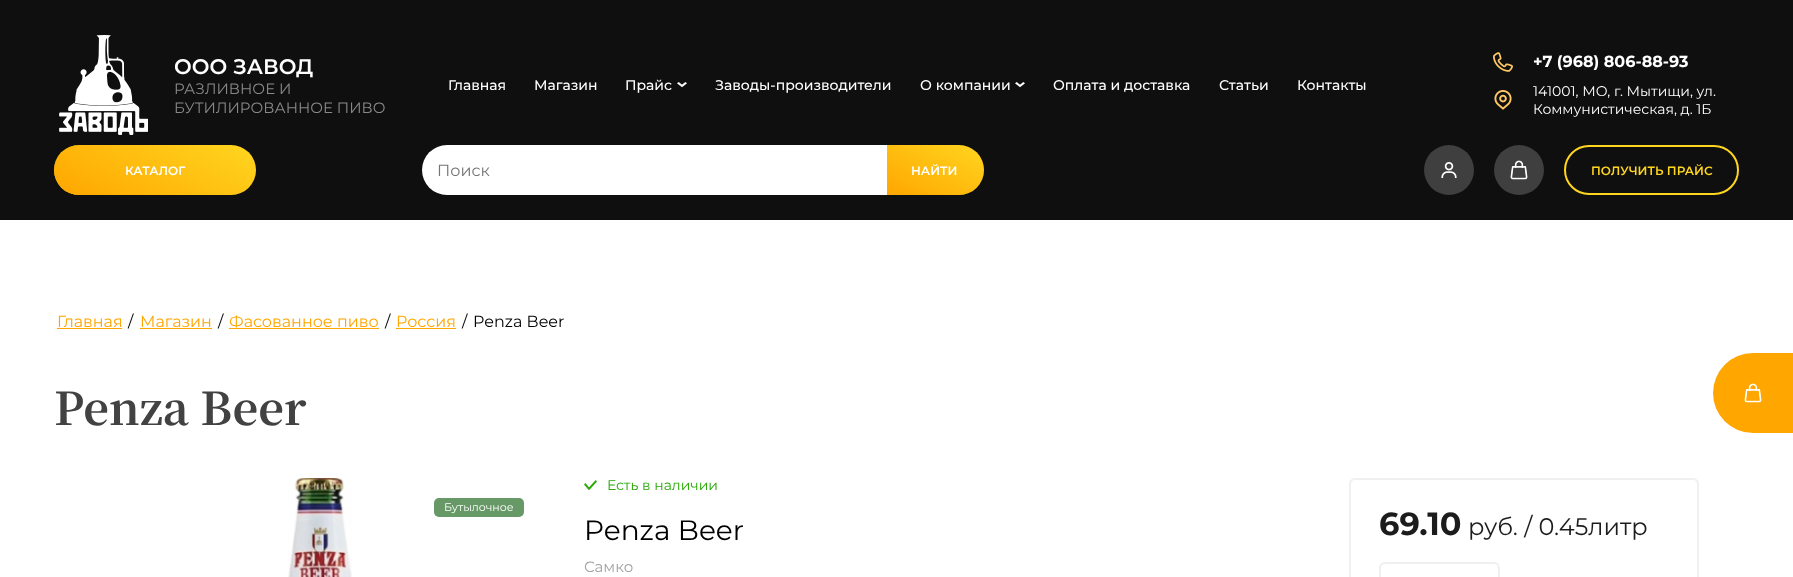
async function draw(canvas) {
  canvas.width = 1793
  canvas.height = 577
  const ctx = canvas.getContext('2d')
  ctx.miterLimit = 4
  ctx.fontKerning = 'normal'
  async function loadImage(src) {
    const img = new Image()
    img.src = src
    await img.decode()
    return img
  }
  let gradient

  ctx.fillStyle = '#0f0f0f'
  ctx.fillRect(0, 0, 1793, 577)
  ctx.drawImage(await loadImage('image0.png'), 59, 35, 89, 100)
  ctx.font = '600 21px Montserrat'
  ctx.fillStyle = '#fff'
  ctx.fillText('ООО ЗАВОД', 174, 74)
  ctx.font = '15px Montserrat'
  ctx.fillStyle = '#898989'
  ctx.fillText('РАЗЛИВНОЕ И', 174, 94)
  ctx.fillText('БУТИЛИРОВАННОЕ ПИВО', 174, 113)
  ctx.font = '500 14px Montserrat'
  ctx.fillStyle = '#fff'
  ctx.fillText('Главная', 448, 90)
  ctx.fillText('Магазин', 534, 90)
  ctx.fillText('Прайс', 625, 90)
  ctx.drawImage(await loadImage('image1.png'), 677, 82, 10, 6)
  ctx.fillText('Заводы-производители', 715, 90)
  ctx.fillText('О компании', 920, 90)
  ctx.drawImage(await loadImage('image1.png'), 1015, 82, 10, 6)
  ctx.fillText('Оплата и доставка', 1053, 90)
  ctx.fillText('Статьи', 1219, 90)
  ctx.fillText('Контакты', 1297, 90)
  ctx.drawImage(await loadImage('image2.png'), 1493, 52, 20, 20)
  ctx.font = 'bold 16px Montserrat'
  ctx.fillText('+7 (968) 806-88-93', 1533, 67)
  ctx.drawImage(await loadImage('image3.png'), 1494, 90, 18, 20)
  ctx.font = '14px Montserrat'
  ctx.fillText('141001, МО, г. Мытищи, ул.', 1533, 96)
  ctx.fillText('Коммунистическая, д. 1Б', 1533, 114)
  ctx.fillStyle = '#ffd61f'
  ctx.beginPath()
  ctx.roundRect(54, 145, 202, 50, 25)
  ctx.fill()
  gradient = ctx.createLinearGradient(122, 231, 188, 109)
  gradient.addColorStop(0, '#ffa600')
  gradient.addColorStop(1, '#ffa60000')
  ctx.fillStyle = gradient
  ctx.beginPath()
  ctx.roundRect(54, 145, 202, 50, 25)
  ctx.fill()
  ctx.font = '600 12px Montserrat'
  ctx.fillStyle = '#fff'
  ctx.fillText('КАТАЛОГ', 125, 175)
  ctx.beginPath()
  ctx.roundRect(422, 145, 465, 50, [25, 0, 0, 25])
  ctx.fill()
  ctx.font = '16px Montserrat'
  ctx.fillStyle = '#757575'
  ctx.fillText('Поиск', 437, 176)
  ctx.fillStyle = '#ffd61f'
  ctx.beginPath()
  ctx.roundRect(887, 145, 97, 50, [0, 25, 25, 0])
  ctx.fill()
  gradient = ctx.createLinearGradient(915, 210, 956, 130)
  gradient.addColorStop(0, '#ffa600')
  gradient.addColorStop(1, '#ffa60000')
  ctx.fillStyle = gradient
  ctx.beginPath()
  ctx.roundRect(887, 145, 97, 50, [0, 25, 25, 0])
  ctx.fill()
  ctx.font = '600 12px Montserrat'
  ctx.fillStyle = '#fff'
  ctx.fillText('НАЙТИ', 911, 175)
  ctx.fillStyle = '#3f3f3f'
  ctx.beginPath()
  ctx.arc(1449, 170, 25, 0, 2 * Math.PI)
  ctx.fill()
  ctx.drawImage(await loadImage('image4.png'), 1441, 162, 16, 16)
  ctx.beginPath()
  ctx.arc(1519, 170, 25, 0, 2 * Math.PI)
  ctx.fill()
  ctx.drawImage(await loadImage('image5.png'), 1510, 160, 18, 20)
  ctx.beginPath()
  ctx.roundRect(1565, 146, 173, 48, 24)
  ctx.strokeStyle = '#ffd61f'
  ctx.lineWidth = 2
  ctx.stroke()
  ctx.fillStyle = '#ffd61f'
  ctx.fillText('ПОЛУЧИТЬ ПРАЙС', 1591, 175)
  ctx.fillStyle = '#fff'
  ctx.fillRect(0, 220, 1793, 357)
  ctx.font = '16px Montserrat'
  ctx.fillStyle = '#ffa600'
  ctx.fillText('Главная', 57, 327)
  ctx.fillRect(57, 328, 65, 1)
  ctx.fillStyle = '#000'
  ctx.fillText('/', 128, 327)
  ctx.fillStyle = '#ffa600'
  ctx.fillText('Магазин', 140, 327)
  ctx.fillRect(140, 328, 72, 1)
  ctx.fillStyle = '#000'
  ctx.fillText('/', 218, 327)
  ctx.fillStyle = '#ffa600'
  ctx.fillText('Фасованное пиво', 229, 327)
  ctx.fillRect(229, 328, 150, 1)
  ctx.fillStyle = '#000'
  ctx.fillText('/', 385, 327)
  ctx.fillStyle = '#ffa600'
  ctx.fillText('Россия', 396, 327)
  ctx.fillRect(396, 328, 60, 1)
  ctx.fillStyle = '#000'
  ctx.fillText('/', 462, 327)
  ctx.fillText('Penza Beer', 473, 327)
  ctx.font = 'bold 45px Noto Serif SC'
  ctx.fillStyle = '#424242'
  ctx.fillText('Penza Beer', 54, 425)
  ctx.drawImage(await loadImage('image6.png'), 288, 478, 64, 99)
  ctx.fillStyle = '#696'
  ctx.beginPath()
  ctx.roundRect(434, 498, 90, 19, 5)
  ctx.fill()
  ctx.font = '11px Montserrat'
  ctx.fillStyle = '#fff'
  ctx.fillText('Бутылочное', 444, 511)
  ctx.drawImage(await loadImage('image7.png'), 584, 480, 13, 10)
  ctx.font = '14px Montserrat'
  ctx.fillStyle = '#27a804'
  ctx.fillText('Есть в наличии', 607, 490)
  ctx.font = '28px Montserrat'
  ctx.fillStyle = '#000'
  ctx.fillText('Penza Beer', 584, 540)
  ctx.font = '15px Montserrat'
  ctx.fillStyle = '#a2a2a2'
  ctx.fillText('Самко', 584, 572)
  ctx.beginPath()
  ctx.roundRect(1350, 479, 348, 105, 5)
  ctx.strokeStyle = '#f0f0f0'
  ctx.stroke()
  ctx.font = 'bold 32px Montserrat'
  ctx.fillStyle = '#1c1c1c'
  ctx.fillText('69.10', 1379, 535)
  ctx.font = '24px Montserrat'
  ctx.fillText('руб. / 0.45литр', 1468, 535)
  ctx.beginPath()
  ctx.roundRect(1380, 563, 119, 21, 5)
  ctx.stroke()
  ctx.fillStyle = '#ffa600'
  ctx.beginPath()
  ctx.roundRect(1713, 353, 80, 80, [40, 0, 0, 40])
  ctx.fill()
  ctx.drawImage(await loadImage('image8.png'), 1744, 383, 18, 20)
}

draw(document.querySelector('canvas'))
